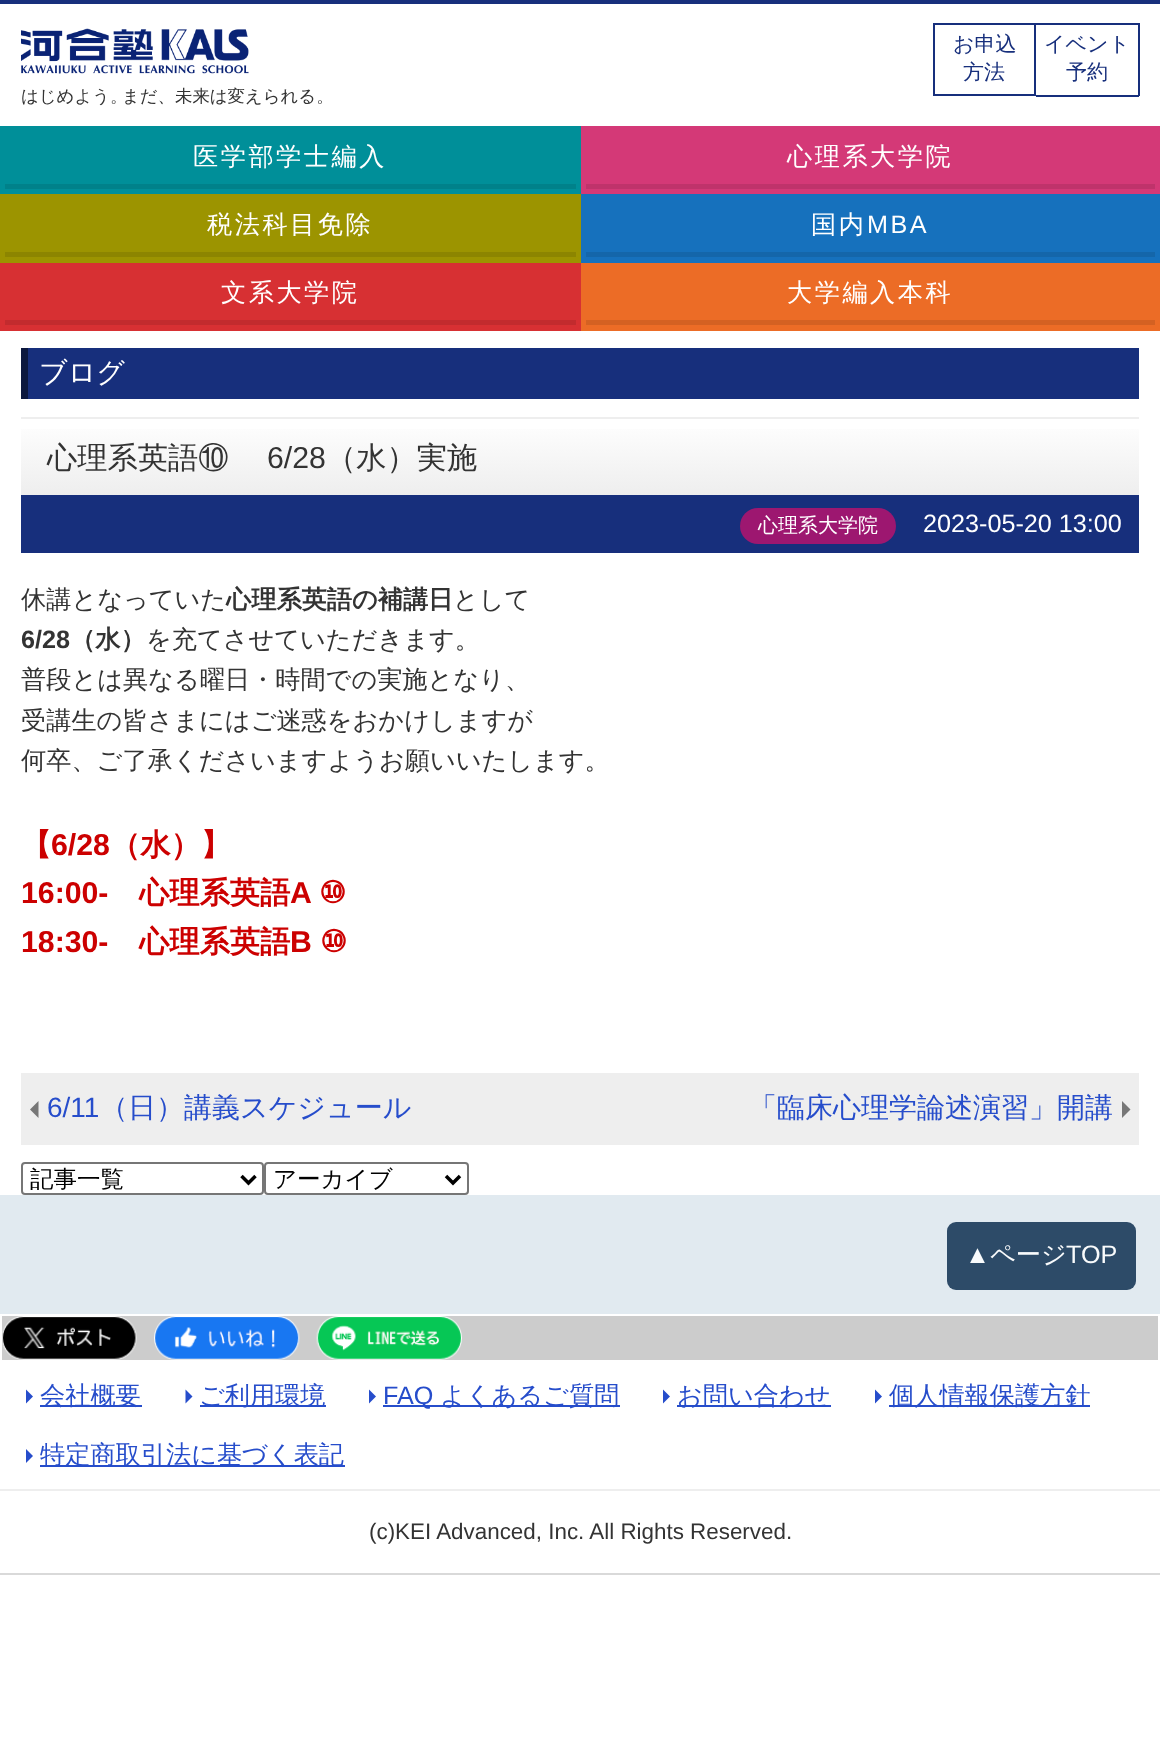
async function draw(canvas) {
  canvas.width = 1160
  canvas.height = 1745
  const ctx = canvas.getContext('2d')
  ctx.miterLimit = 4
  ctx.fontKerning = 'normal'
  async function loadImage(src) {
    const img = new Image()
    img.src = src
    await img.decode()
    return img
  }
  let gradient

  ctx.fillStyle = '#fff'
  ctx.fillRect(0, 0, 1160, 1745)
  ctx.fillStyle = '#172f7c'
  ctx.fillRect(0, 0, 1160, 4)
  ctx.strokeStyle = '#172f7c'
  ctx.lineWidth = 2
  ctx.strokeRect(934, 24, 101, 71)
  ctx.font = '500 21px WenQuanYi Zen Hei'
  ctx.fillText('お申込', 953, 51)
  ctx.fillText('方法', 963, 79)
  ctx.fillRect(1036, 23, 103, 2)
  ctx.fillRect(1138, 23, 2, 73)
  ctx.fillRect(1036, 95, 103, 2)
  ctx.fillText('イベント', 1044, 51)
  ctx.fillText('予約', 1066, 79)
  ctx.drawImage(await loadImage('image0.png'), 21, 28, 228, 46)
  ctx.font = '500 17.4px WenQuanYi Zen Hei'
  ctx.fillStyle = '#333'
  ctx.fillText('はじめよう。', 21, 102)
  ctx.fillText('まだ、未来は変えられる。', 122, 102)
  ctx.fillStyle = '#008f99'
  ctx.fillRect(0, 126, 581, 68)
  ctx.letterSpacing = '2.5px'
  ctx.font = '500 25.2px WenQuanYi Zen Hei'
  ctx.fillStyle = '#fff'
  ctx.fillText('医学部学士編入', 193, 165)
  ctx.fillStyle = '#00818a'
  ctx.fillRect(5, 184, 571, 5)
  ctx.fillStyle = '#d43977'
  ctx.fillRect(581, 126, 579, 68)
  ctx.fillStyle = '#fff'
  ctx.fillText('心理系大学院', 787, 165)
  ctx.fillStyle = '#bf336b'
  ctx.fillRect(586, 184, 569, 5)
  ctx.fillStyle = '#9c9400'
  ctx.fillRect(0, 194, 581, 69)
  ctx.fillStyle = '#fff'
  ctx.fillText('税法科目免除', 207, 233)
  ctx.fillStyle = '#8c8500'
  ctx.fillRect(5, 252, 571, 5)
  ctx.fillStyle = '#1671bd'
  ctx.fillRect(581, 194, 579, 69)
  ctx.fillStyle = '#fff'
  ctx.fillText('国内', 811, 233)
  ctx.font = '25.2px Liberation Sans'
  ctx.fillText('MBA', 867, 233)
  ctx.fillStyle = '#1466aa'
  ctx.fillRect(586, 252, 569, 5)
  ctx.fillStyle = '#d73033'
  ctx.fillRect(0, 263, 581, 68)
  ctx.font = '500 25.2px WenQuanYi Zen Hei'
  ctx.fillStyle = '#fff'
  ctx.fillText('文系大学院', 221, 301)
  ctx.fillStyle = '#c22b2e'
  ctx.fillRect(5, 320, 571, 5)
  ctx.fillStyle = '#ec6c26'
  ctx.fillRect(581, 263, 579, 68)
  ctx.fillStyle = '#fff'
  ctx.fillText('大学編入本科', 787, 301)
  ctx.fillStyle = '#d46122'
  ctx.fillRect(586, 320, 569, 5)
  ctx.fillStyle = '#172f7c'
  ctx.fillRect(28, 348, 1111, 51)
  ctx.fillStyle = '#0c183e'
  ctx.fillRect(21, 348, 7, 51)
  ctx.letterSpacing = '0px'
  ctx.font = '500 28px WenQuanYi Zen Hei'
  ctx.fillStyle = '#fff'
  ctx.fillText('ブログ', 39, 382)
  gradient = ctx.createLinearGradient(580, 418, 580, 495)
  gradient.addColorStop(0, '#fff')
  gradient.addColorStop(1, '#eee')
  ctx.fillStyle = gradient
  ctx.fillRect(21, 429, 1118, 66)
  ctx.fillStyle = '#eee'
  ctx.fillRect(21, 417, 1118, 2)
  ctx.font = '500 30.25px WenQuanYi Zen Hei'
  ctx.fillStyle = '#333'
  ctx.fillText('心理系英語⑩', 47, 468)
  ctx.font = '30.25px Liberation Sans'
  ctx.fillText('6/28', 267, 468)
  ctx.font = '500 30.25px WenQuanYi Zen Hei'
  ctx.fillText('（水）実施', 326, 468)
  ctx.fillStyle = '#172f7c'
  ctx.fillRect(21, 495, 1118, 58)
  ctx.fillStyle = '#9d1770'
  ctx.beginPath()
  ctx.roundRect(740, 508, 156, 36, 18)
  ctx.fill()
  ctx.font = '500 20px WenQuanYi Zen Hei'
  ctx.fillStyle = '#fff'
  ctx.fillText('心理系大学院', 758, 532)
  ctx.font = '25.2px Liberation Sans'
  ctx.fillText('2023-05-20 13:00', 923, 532)
  ctx.font = '500 25.2px WenQuanYi Zen Hei'
  ctx.fillStyle = '#333'
  ctx.fillText('休講となっていた', 21, 608)
  ctx.font = 'bold 25.2px WenQuanYi Zen Hei'
  ctx.fillText('心理系英語の補講日', 226, 608)
  ctx.font = '500 25.2px WenQuanYi Zen Hei'
  ctx.fillText('として', 453, 608)
  ctx.font = 'bold 25.2px Liberation Sans'
  ctx.fillText('6/28', 21, 648)
  ctx.font = 'bold 25.2px WenQuanYi Zen Hei'
  ctx.fillText('（水）', 70, 648)
  ctx.font = '500 25.2px WenQuanYi Zen Hei'
  ctx.fillText('を充てさせていただきます。', 146, 648)
  ctx.fillText('普段とは異なる曜日・時間での実施となり、', 21, 688)
  ctx.fillText('受講生の皆さまにはご迷惑をおかけしますが', 21, 729)
  ctx.fillText('何卒、ご了承くださいますようお願いいたします。', 21, 769)
  ctx.font = 'bold 30.25px WenQuanYi Zen Hei'
  ctx.fillStyle = '#c00'
  ctx.fillText('【', 21, 855)
  ctx.font = 'bold 30.25px Liberation Sans'
  ctx.fillText('6/28', 51, 855)
  ctx.font = 'bold 30.25px WenQuanYi Zen Hei'
  ctx.fillText('（水）】', 110, 855)
  ctx.font = 'bold 30.25px Liberation Sans'
  ctx.fillText('16:00-', 21, 903)
  ctx.font = 'bold 30.25px WenQuanYi Zen Hei'
  ctx.fillText('心理系英語', 139, 903)
  ctx.font = 'bold 30.25px Liberation Sans'
  ctx.fillText('A', 290, 903)
  ctx.font = 'bold 30.25px DejaVu Sans'
  ctx.fillText('⑩', 319, 903)
  ctx.font = 'bold 30.25px Liberation Sans'
  ctx.fillText('18:30-', 21, 952)
  ctx.font = 'bold 30.25px WenQuanYi Zen Hei'
  ctx.fillText('心理系英語', 139, 952)
  ctx.font = 'bold 30.25px Liberation Sans'
  ctx.fillText('B', 290, 952)
  ctx.font = 'bold 30.25px DejaVu Sans'
  ctx.fillText('⑩', 320, 952)
  ctx.fillStyle = '#eee'
  ctx.fillRect(21, 1073, 1118, 72)
  ctx.fillStyle = '#777'
  ctx.beginPath()
  ctx.moveTo(38.5, 1101)
  ctx.lineTo(38.5, 1118)
  ctx.lineTo(30, 1109.5)
  ctx.closePath()
  ctx.fill()
  ctx.font = '28px Liberation Sans'
  ctx.fillStyle = '#264dcb'
  ctx.fillText('6/11', 47, 1117)
  ctx.font = '500 28px WenQuanYi Zen Hei'
  ctx.fillText('（日）講義スケジュール', 100, 1117)
  ctx.fillText('「臨床心理学論述演習」開講', 749, 1117)
  ctx.fillStyle = '#777'
  ctx.beginPath()
  ctx.moveTo(1122, 1118)
  ctx.lineTo(1122, 1101)
  ctx.lineTo(1130.5, 1109.5)
  ctx.closePath()
  ctx.fill()
  ctx.beginPath()
  ctx.roundRect(22, 1163, 241, 31, 3)
  ctx.strokeStyle = '#767676'
  ctx.stroke()
  ctx.beginPath()
  ctx.moveTo(241.5, 1176)
  ctx.lineTo(248.5, 1183)
  ctx.lineTo(255.5, 1176)
  ctx.strokeStyle = '#000'
  ctx.lineWidth = 3.5
  ctx.stroke()
  ctx.font = '500 23.5px WenQuanYi Zen Hei'
  ctx.fillStyle = '#000'
  ctx.fillText('記事一覧', 30, 1187)
  ctx.beginPath()
  ctx.roundRect(265, 1163, 203, 31, 3)
  ctx.strokeStyle = '#767676'
  ctx.lineWidth = 2
  ctx.stroke()
  ctx.beginPath()
  ctx.moveTo(446, 1176)
  ctx.lineTo(453, 1183)
  ctx.lineTo(460, 1176)
  ctx.strokeStyle = '#000'
  ctx.lineWidth = 3.5
  ctx.stroke()
  ctx.fillText('アーカイブ', 273, 1187)
  ctx.fillStyle = '#e1eaf0'
  ctx.fillRect(0, 1195, 1160, 119)
  ctx.fillStyle = '#2d4b68'
  ctx.beginPath()
  ctx.roundRect(947, 1222, 189, 68, 9)
  ctx.fill()
  ctx.font = '25.2px Liberation Sans'
  ctx.fillStyle = '#f9fbfc'
  ctx.fillText('▲', 965, 1263)
  ctx.font = '500 25.2px WenQuanYi Zen Hei'
  ctx.fillText('ページ', 990, 1263)
  ctx.font = '25.2px Liberation Sans'
  ctx.fillText('TOP', 1066, 1263)
  ctx.fillStyle = '#ccc'
  ctx.fillRect(2, 1316, 1156, 44)
  ctx.drawImage(await loadImage('image1.png'), 2, 1316, 135, 44)
  ctx.drawImage(await loadImage('image2.png'), 154, 1316, 146, 44)
  ctx.drawImage(await loadImage('image3.png'), 316, 1316, 146, 44)
  ctx.fillStyle = '#eee'
  ctx.fillRect(0, 1489, 1160, 2)
  ctx.fillStyle = '#264dcb'
  ctx.beginPath()
  ctx.moveTo(26, 1403.5)
  ctx.lineTo(26, 1389.5)
  ctx.lineTo(33, 1396.5)
  ctx.closePath()
  ctx.fill()
  ctx.fillRect(40, 1405, 102, 2)
  ctx.font = '500 25.2px WenQuanYi Zen Hei'
  ctx.fillText('会社概要', 40, 1404)
  ctx.beginPath()
  ctx.moveTo(185.5, 1403.5)
  ctx.lineTo(185.5, 1389.5)
  ctx.lineTo(192.5, 1396.5)
  ctx.closePath()
  ctx.fill()
  ctx.fillRect(200, 1405, 126, 2)
  ctx.fillText('ご利用環境', 199, 1404)
  ctx.beginPath()
  ctx.moveTo(369, 1403.5)
  ctx.lineTo(369, 1389.5)
  ctx.lineTo(376, 1396.5)
  ctx.closePath()
  ctx.fill()
  ctx.fillRect(383, 1405, 237, 2)
  ctx.font = '25.2px Liberation Sans'
  ctx.fillText('FAQ', 383, 1404)
  ctx.font = '500 25.2px WenQuanYi Zen Hei'
  ctx.fillText('よくあるご質問', 440, 1404)
  ctx.beginPath()
  ctx.moveTo(663, 1403.5)
  ctx.lineTo(663, 1389.5)
  ctx.lineTo(670, 1396.5)
  ctx.closePath()
  ctx.fill()
  ctx.fillRect(677, 1405, 154, 2)
  ctx.fillText('お問い合わせ', 677, 1404)
  ctx.beginPath()
  ctx.moveTo(875, 1403.5)
  ctx.lineTo(875, 1389.5)
  ctx.lineTo(882, 1396.5)
  ctx.closePath()
  ctx.fill()
  ctx.fillRect(889, 1405, 201, 2)
  ctx.fillText('個人情報保護方針', 889, 1404)
  ctx.beginPath()
  ctx.moveTo(26, 1463)
  ctx.lineTo(26, 1449)
  ctx.lineTo(33, 1456)
  ctx.closePath()
  ctx.fill()
  ctx.fillRect(40, 1465, 305, 2)
  ctx.fillText('特定商取引法に基づく表記', 40, 1463)
  ctx.font = '22.4px Liberation Sans'
  ctx.fillStyle = '#333'
  ctx.fillText('(c)KEI Advanced, Inc. All Rights Reserved.', 369, 1539)
  ctx.fillStyle = '#d9d9d9'
  ctx.fillRect(0, 1573, 1160, 2)
}

draw(document.querySelector('canvas'))
